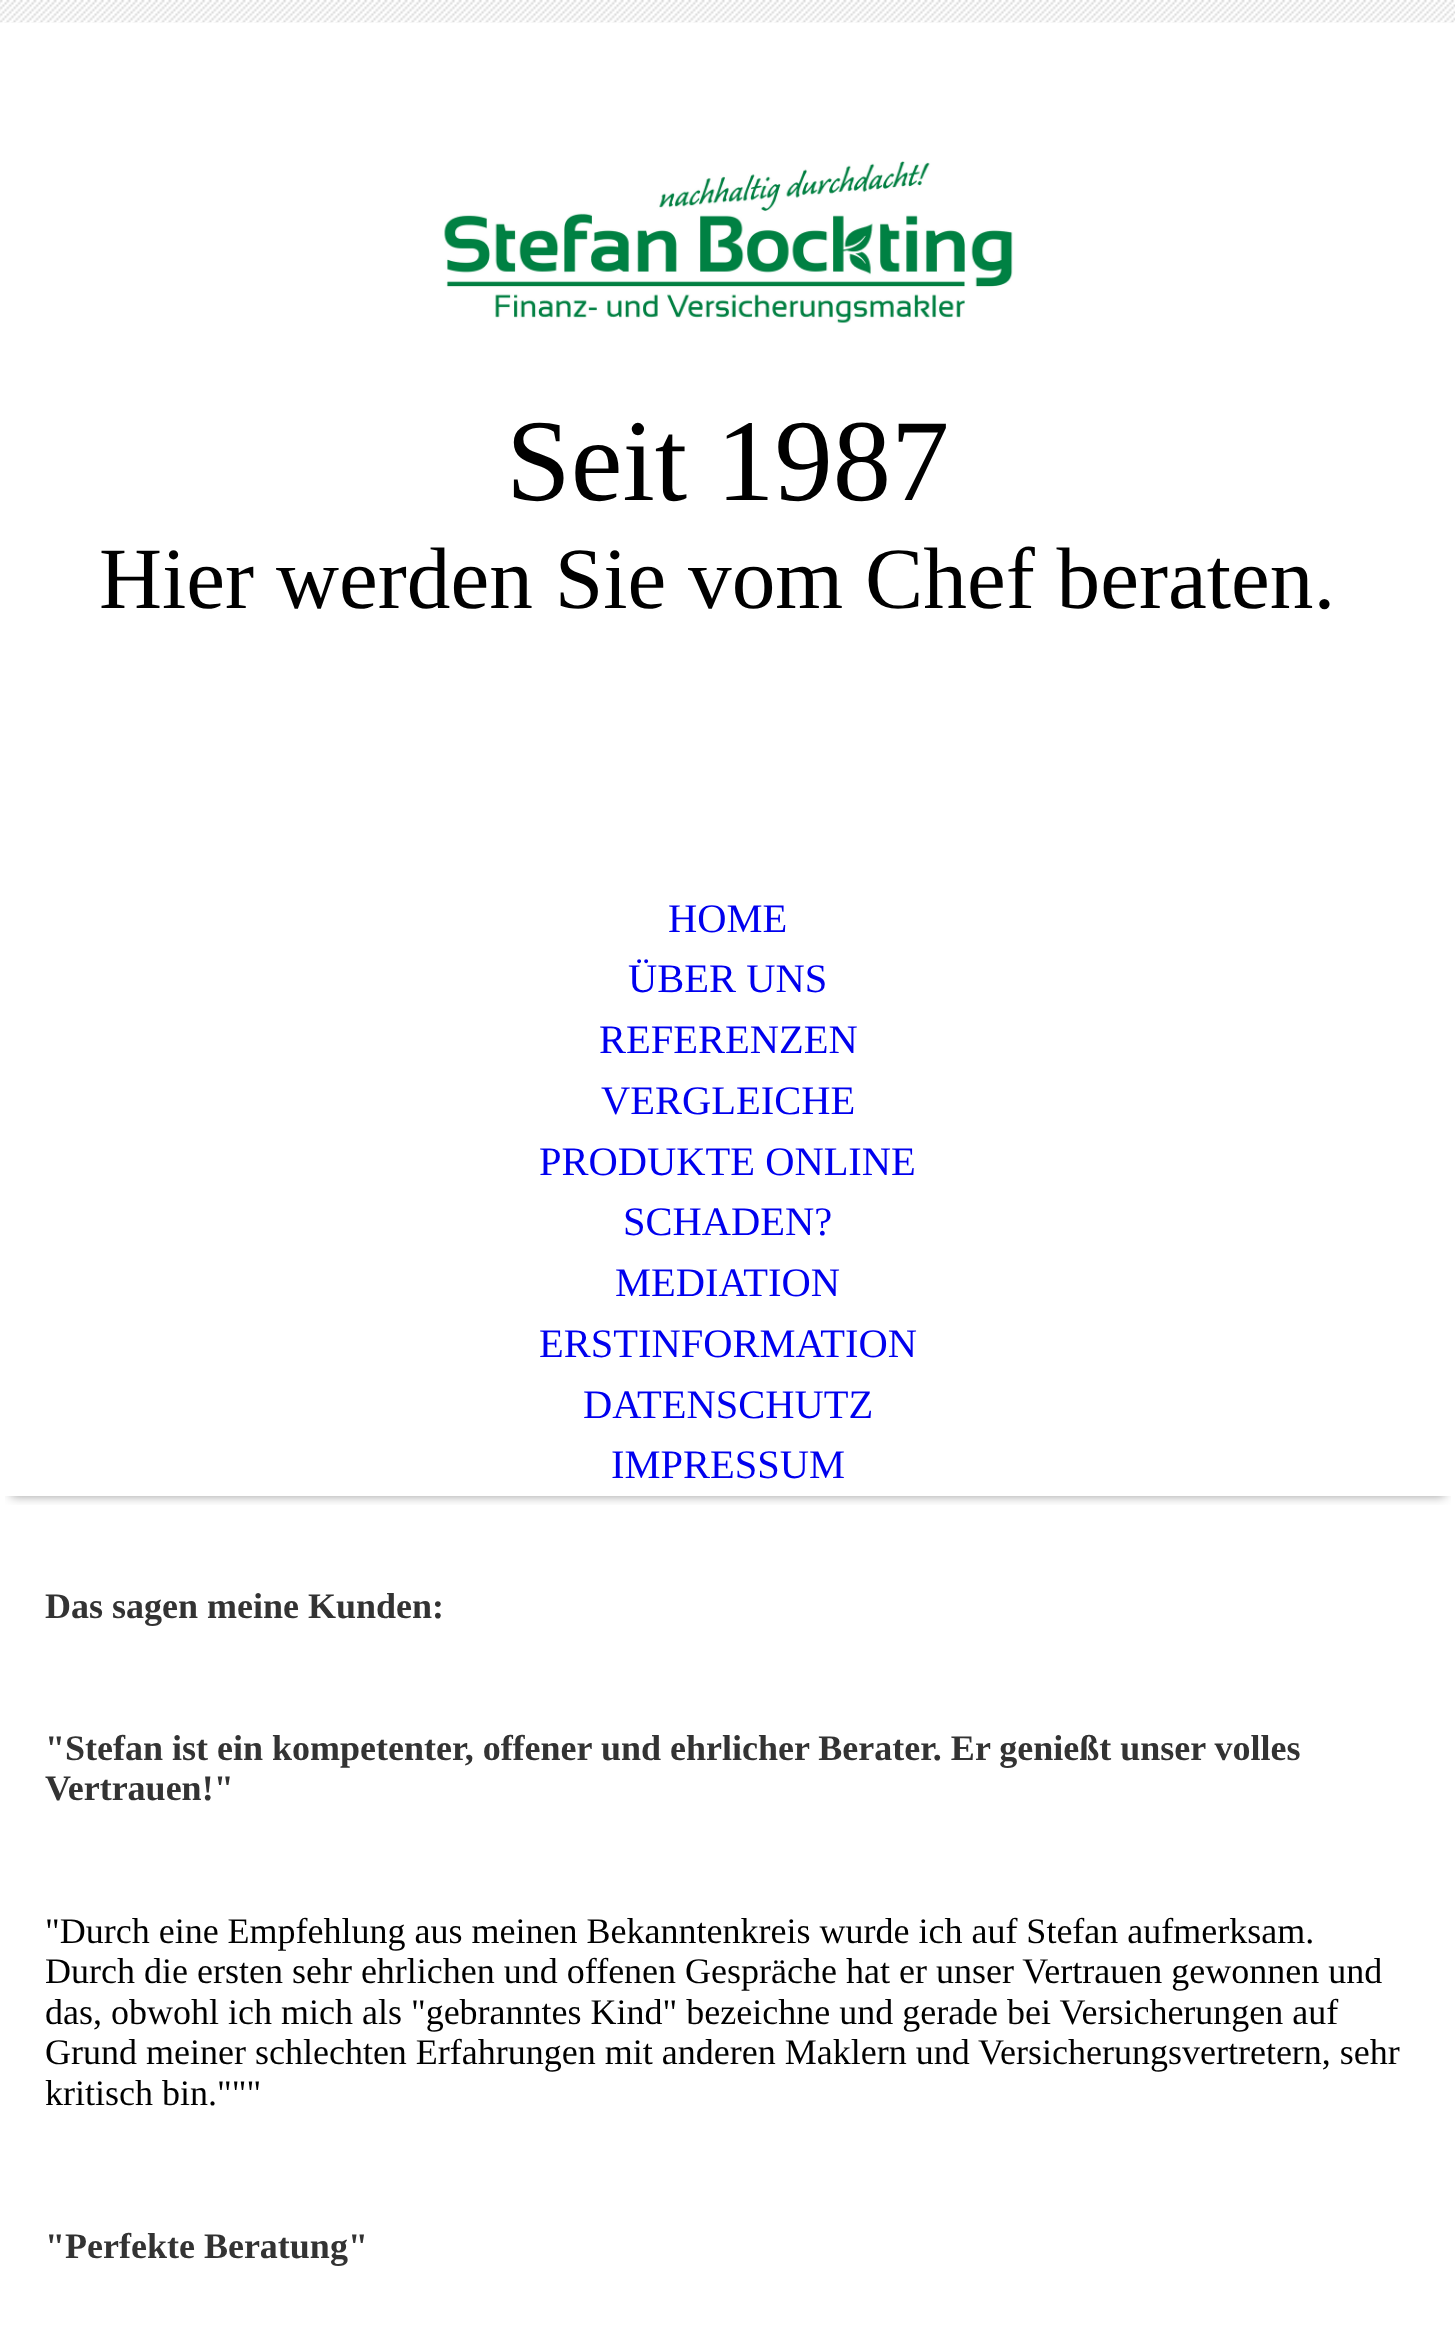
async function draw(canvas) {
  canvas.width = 1455
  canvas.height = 2344
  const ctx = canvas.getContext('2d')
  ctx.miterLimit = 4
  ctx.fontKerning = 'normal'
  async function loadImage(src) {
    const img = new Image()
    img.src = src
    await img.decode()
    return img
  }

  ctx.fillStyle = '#fff'
  ctx.fillRect(0, 0, 1455, 2344)
  ctx.drawImage(await loadImage('image0.png'), 0, 0, 1455, 23)
  ctx.drawImage(await loadImage('image1.png'), 444, 161, 569, 163)
  ctx.font = '116.5px Liberation Serif'
  ctx.fillStyle = '#000'
  ctx.fillText('Seit 1987', 506, 500)
  ctx.font = '87.3px Liberation Serif'
  ctx.fillText('Hier werden Sie vom Chef beraten.', 99, 608)
  ctx.save()
  ctx.beginPath()
  ctx.rect(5, 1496, 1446, 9)
  ctx.clip()
  ctx.fillStyle = '#00000066'
  ctx.filter = 'blur(5.5px)'
  ctx.beginPath()
  ctx.rect(11, 866, 1434, 630)
  ctx.fill()
  ctx.filter = 'none'
  ctx.restore()
  ctx.font = '40.5px Liberation Serif'
  ctx.fillStyle = '#00e'
  ctx.fillText('HOME', 668, 932)
  ctx.fillText('ÜBER UNS', 628, 992)
  ctx.fillText('REFERENZEN', 599, 1053)
  ctx.fillText('VERGLEICHE', 601, 1114)
  ctx.fillText('PRODUKTE ONLINE', 539, 1175)
  ctx.fillText('SCHADEN?', 623, 1235)
  ctx.fillText('MEDIATION', 615, 1296)
  ctx.fillText('ERSTINFORMATION', 539, 1357)
  ctx.fillText('DATENSCHUTZ', 583, 1418)
  ctx.fillText('IMPRESSUM', 611, 1478)
  ctx.font = 'bold 36px Liberation Serif'
  ctx.fillStyle = '#333'
  ctx.fillText('Das sagen meine Kunden:', 45, 1618)
  ctx.fillText('"Stefan ist ein kompetenter, offener und ehrlicher Berater. Er genießt unser volles', 45, 1760)
  ctx.fillText('Vertrauen!"', 45, 1800)
  ctx.font = '36px Liberation Serif'
  ctx.fillStyle = '#000'
  ctx.fillText('"Durch eine Empfehlung aus meinen Bekanntenkreis wurde ich auf Stefan aufmerksam.', 45, 1943)
  ctx.fillText('Durch die ersten sehr ehrlichen und offenen Gespräche hat er unser Vertrauen gewonnen und', 45, 1983)
  ctx.fillText('das, obwohl ich mich als "gebranntes Kind" bezeichne und gerade bei Versicherungen auf', 45, 2024)
  ctx.fillText('Grund meiner schlechten Erfahrungen mit anderen Maklern und Versicherungsvertretern, sehr', 45, 2064)
  ctx.fillText('kritisch bin."""', 45, 2105)
  ctx.font = 'bold 36px Liberation Serif'
  ctx.fillStyle = '#333'
  ctx.fillText('"Perfekte Beratung"', 45, 2258)
}

draw(document.querySelector('canvas'))
